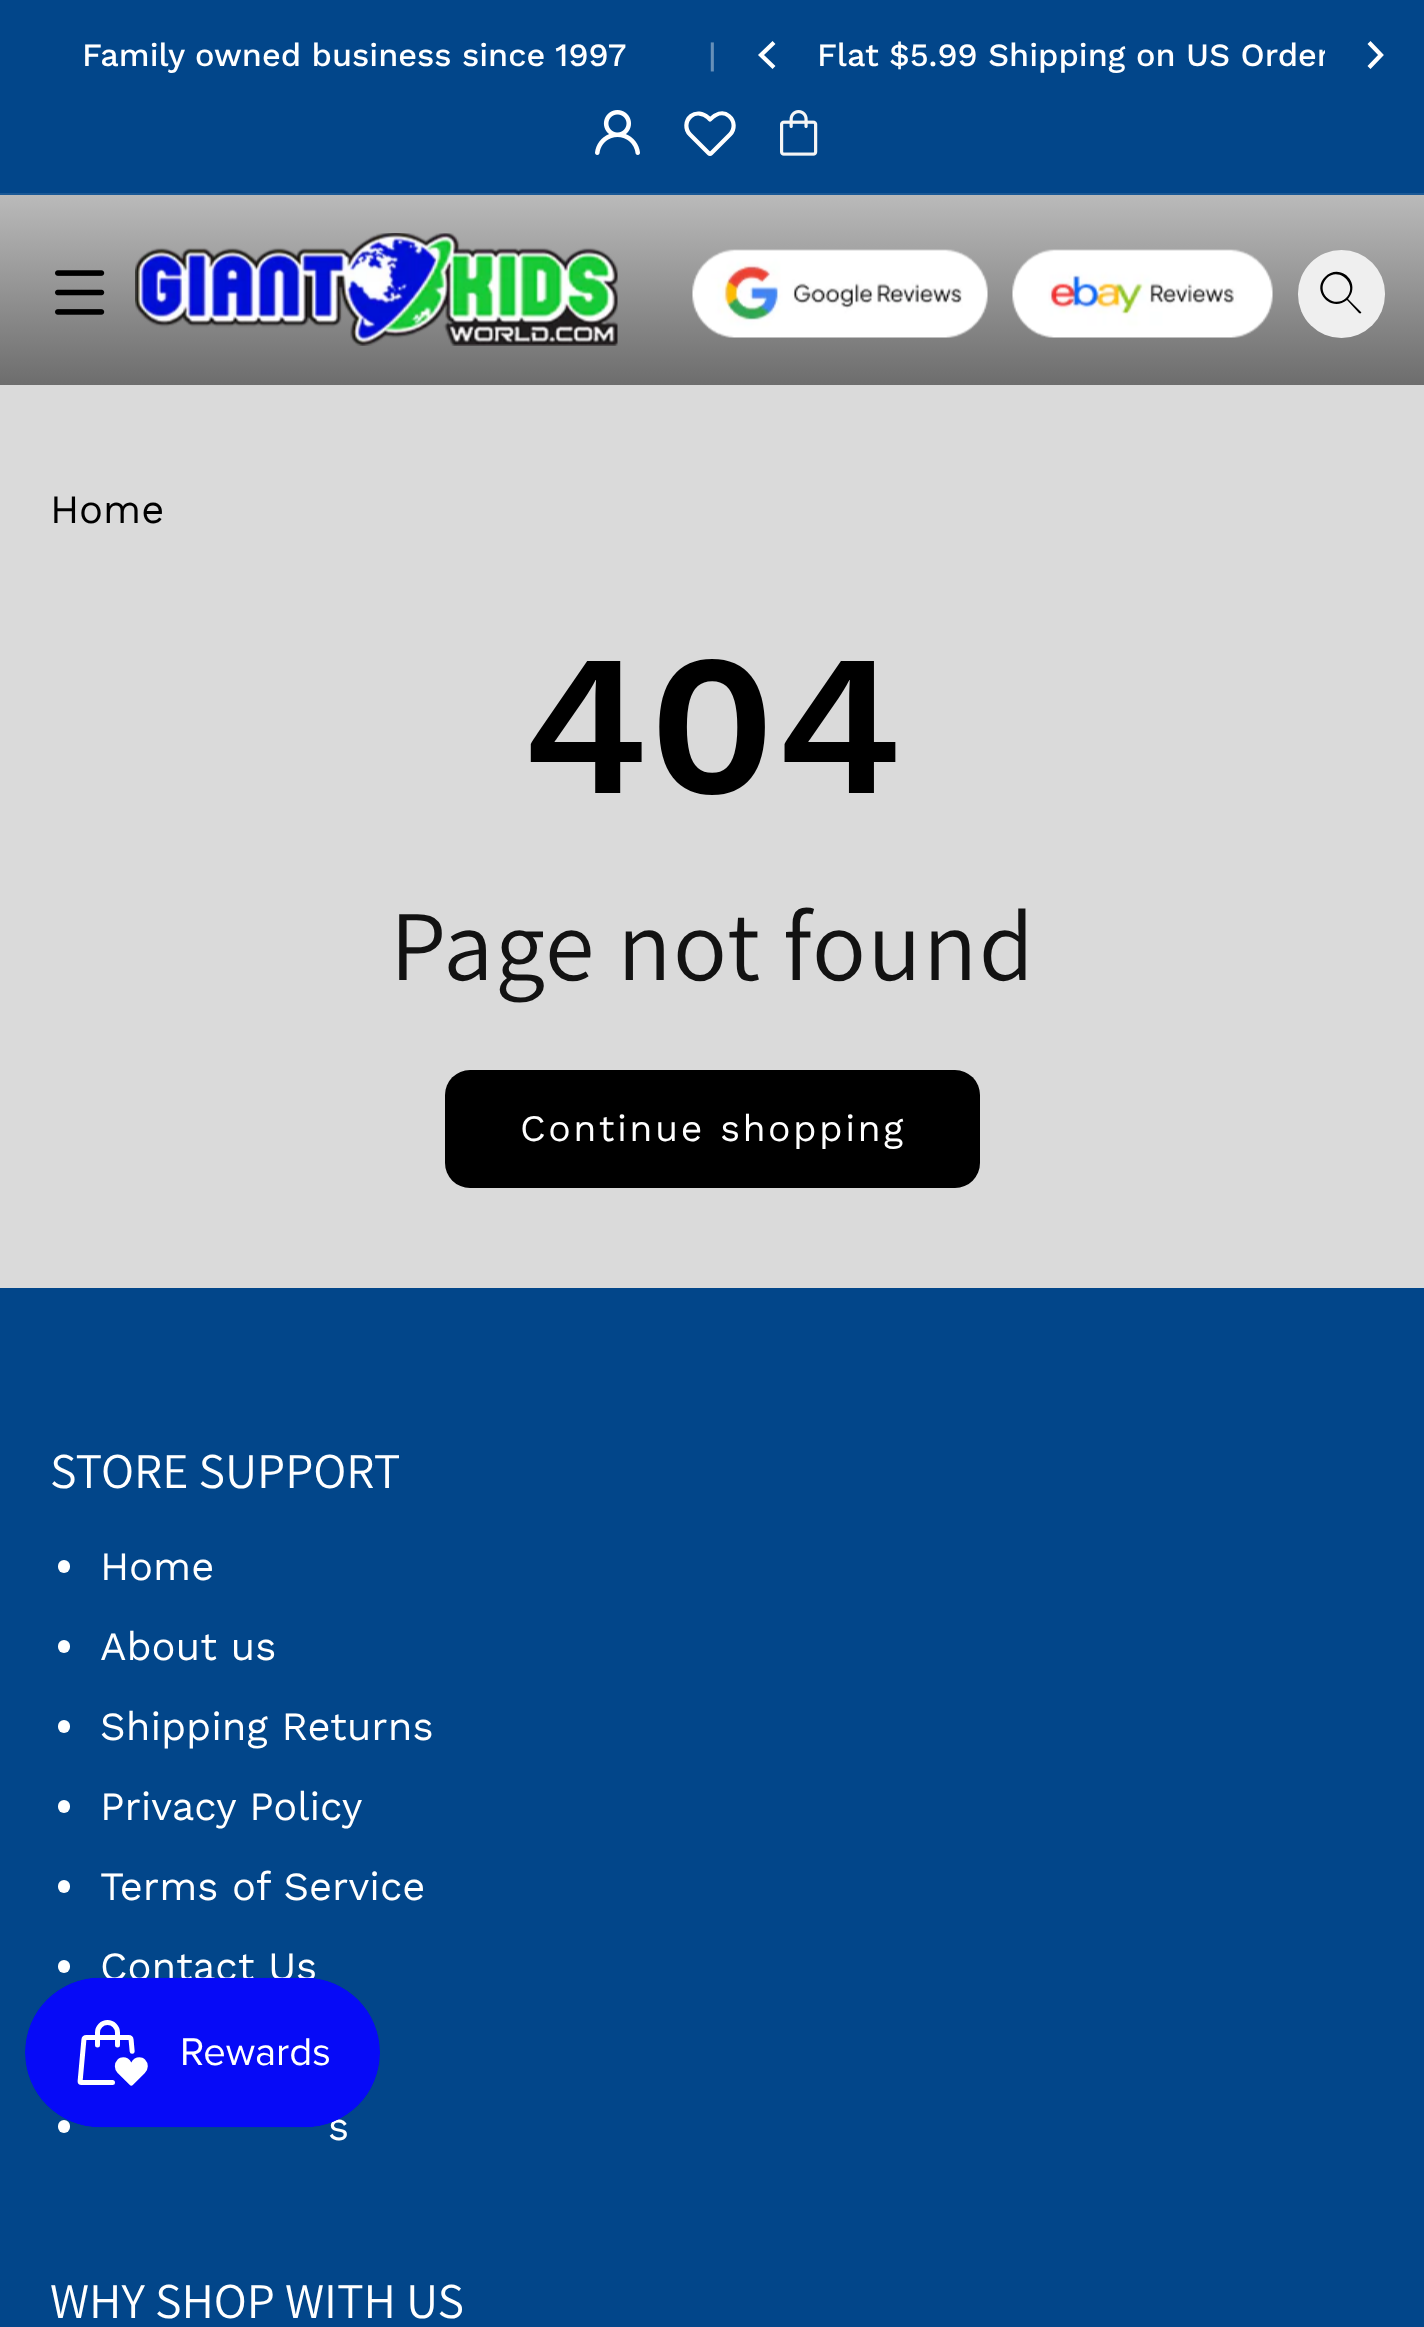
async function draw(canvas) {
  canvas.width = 1424
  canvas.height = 2327
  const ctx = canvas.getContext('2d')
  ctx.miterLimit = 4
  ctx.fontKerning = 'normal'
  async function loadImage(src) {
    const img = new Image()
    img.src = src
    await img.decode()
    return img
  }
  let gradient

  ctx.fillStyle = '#dadada'
  ctx.fillRect(0, 0, 1424, 2327)
  ctx.fillStyle = '#02468a'
  ctx.fillRect(0, 0, 1424, 193)
  ctx.fillStyle = '#1b5996'
  ctx.fillRect(0, 193, 1424, 2)
  ctx.font = '500 32.5px Work Sans'
  ctx.fillStyle = '#fff'
  ctx.fillText('Family owned business since 1997', 82, 66)
  ctx.fillStyle = '#6790b9'
  ctx.fillText('|', 708, 66)
  ctx.beginPath()
  ctx.moveTo(774, 67.5)
  ctx.lineTo(761, 55)
  ctx.lineTo(774, 42.5)
  ctx.strokeStyle = '#fff'
  ctx.lineWidth = 4.2
  ctx.stroke()
  ctx.save()
  ctx.beginPath()
  ctx.rect(818, 38, 507, 37)
  ctx.clip()
  ctx.fillStyle = '#fff'
  ctx.fillText('Flat $5.99 Shipping on US Order', 817, 66)
  ctx.restore()
  ctx.beginPath()
  ctx.moveTo(1369, 67.5)
  ctx.lineTo(1381, 55)
  ctx.lineTo(1369, 42.5)
  ctx.stroke()
  ctx.drawImage(await loadImage('image0.png'), 595, 110, 45, 45)
  ctx.beginPath()
  ctx.moveTo(729, 116)
  ctx.bezierCurveTo(722.5, 110.5, 715, 114.5, 710, 119.5)
  ctx.lineTo(708, 117.5)
  ctx.bezierCurveTo(703, 113, 696, 112, 691, 116)
  ctx.bezierCurveTo(685, 121, 685, 129.5, 690, 134.5)
  ctx.lineTo(709, 153.5)
  ctx.bezierCurveTo(709.5, 154, 710.5, 154, 711, 153.5)
  ctx.lineTo(730, 134.5)
  ctx.bezierCurveTo(735, 129.5, 735, 121, 729, 116)
  ctx.closePath()
  ctx.lineCap = 'round'
  ctx.lineJoin = 'round'
  ctx.stroke()
  ctx.drawImage(await loadImage('image1.png'), 780, 110, 38, 46)
  gradient = ctx.createLinearGradient(713, 195, 713, 385)
  gradient.addColorStop(0, '#bababa')
  gradient.addColorStop(1, '#6d6d6d')
  ctx.fillStyle = gradient
  ctx.fillRect(0, 195, 1424, 190)
  ctx.drawImage(await loadImage('image2.png'), 55, 270, 50, 45)
  ctx.drawImage(await loadImage('image3.png'), 135, 233, 483, 113)
  ctx.drawImage(await loadImage('image4.png'), 692, 249, 296, 89)
  ctx.drawImage(await loadImage('image5.png'), 1012, 249, 261, 89)
  ctx.fillStyle = '#efefef'
  ctx.beginPath()
  ctx.roundRect(1298, 250, 87, 88, 43.5)
  ctx.fill()
  ctx.fillStyle = '#000'
  ctx.beginPath()
  ctx.moveTo(1346, 298)
  ctx.bezierCurveTo(1333, 310, 1314, 291, 1327, 278)
  ctx.bezierCurveTo(1339, 266, 1359, 285, 1346, 298)
  ctx.moveTo(1347, 300)
  ctx.bezierCurveTo(1331, 313, 1311, 291, 1325, 277)
  ctx.bezierCurveTo(1340, 262, 1362, 283, 1348, 299)
  ctx.lineTo(1361, 312)
  ctx.bezierCurveTo(1362, 313, 1360, 314, 1359, 313)
  ctx.closePath()
  ctx.fill('evenodd')
  ctx.font = '40px Work Sans'
  ctx.fillText('Home', 50, 523)
  ctx.font = '600 200px Work Sans'
  ctx.fillText('404', 522, 793)
  ctx.letterSpacing = '1.5px'
  ctx.font = '100px Assistant'
  ctx.fillStyle = '#121212'
  ctx.fillText('Page not found', 390, 980)
  ctx.fillStyle = '#000'
  ctx.beginPath()
  ctx.roundRect(445, 1070, 535, 118, 25)
  ctx.fill()
  ctx.letterSpacing = '2.5px'
  ctx.font = '37.5px Work Sans'
  ctx.fillStyle = '#fff'
  ctx.fillText('Continue shopping', 520, 1141)
  ctx.fillStyle = '#02468a'
  ctx.fillRect(0, 1288, 1424, 1039)
  ctx.letterSpacing = '0px'
  ctx.font = '50px Assistant'
  ctx.fillStyle = '#fff'
  ctx.fillText('STORE SUPPORT', 50, 1488)
  ctx.beginPath()
  ctx.roundRect(58, 1560, 12, 13, 6)
  ctx.fill()
  ctx.font = '40px Work Sans'
  ctx.fillText('Home', 100, 1580)
  ctx.beginPath()
  ctx.roundRect(58, 1640, 12, 13, 6)
  ctx.fill()
  ctx.fillText('About us', 100, 1660)
  ctx.beginPath()
  ctx.roundRect(58, 1720, 12, 13, 6)
  ctx.fill()
  ctx.fillText('Shipping Returns', 100, 1740)
  ctx.beginPath()
  ctx.roundRect(58, 1800, 12, 13, 6)
  ctx.fill()
  ctx.fillText('Privacy Policy', 100, 1820)
  ctx.beginPath()
  ctx.roundRect(58, 1880, 12, 13, 6)
  ctx.fill()
  ctx.fillText('Terms of Service', 100, 1900)
  ctx.beginPath()
  ctx.roundRect(58, 1960, 12, 13, 6)
  ctx.fill()
  ctx.fillText('Contact Us', 100, 1980)
  ctx.beginPath()
  ctx.roundRect(58, 2120, 12, 13, 6)
  ctx.fill()
  ctx.fillText('s', 328, 2140)
  ctx.font = '50px Assistant'
  ctx.fillText('WHY SHOP WITH US', 50, 2318)
  ctx.drawImage(await loadImage('image6.png'), 25, 1977, 355, 151)
}

draw(document.querySelector('canvas'))
